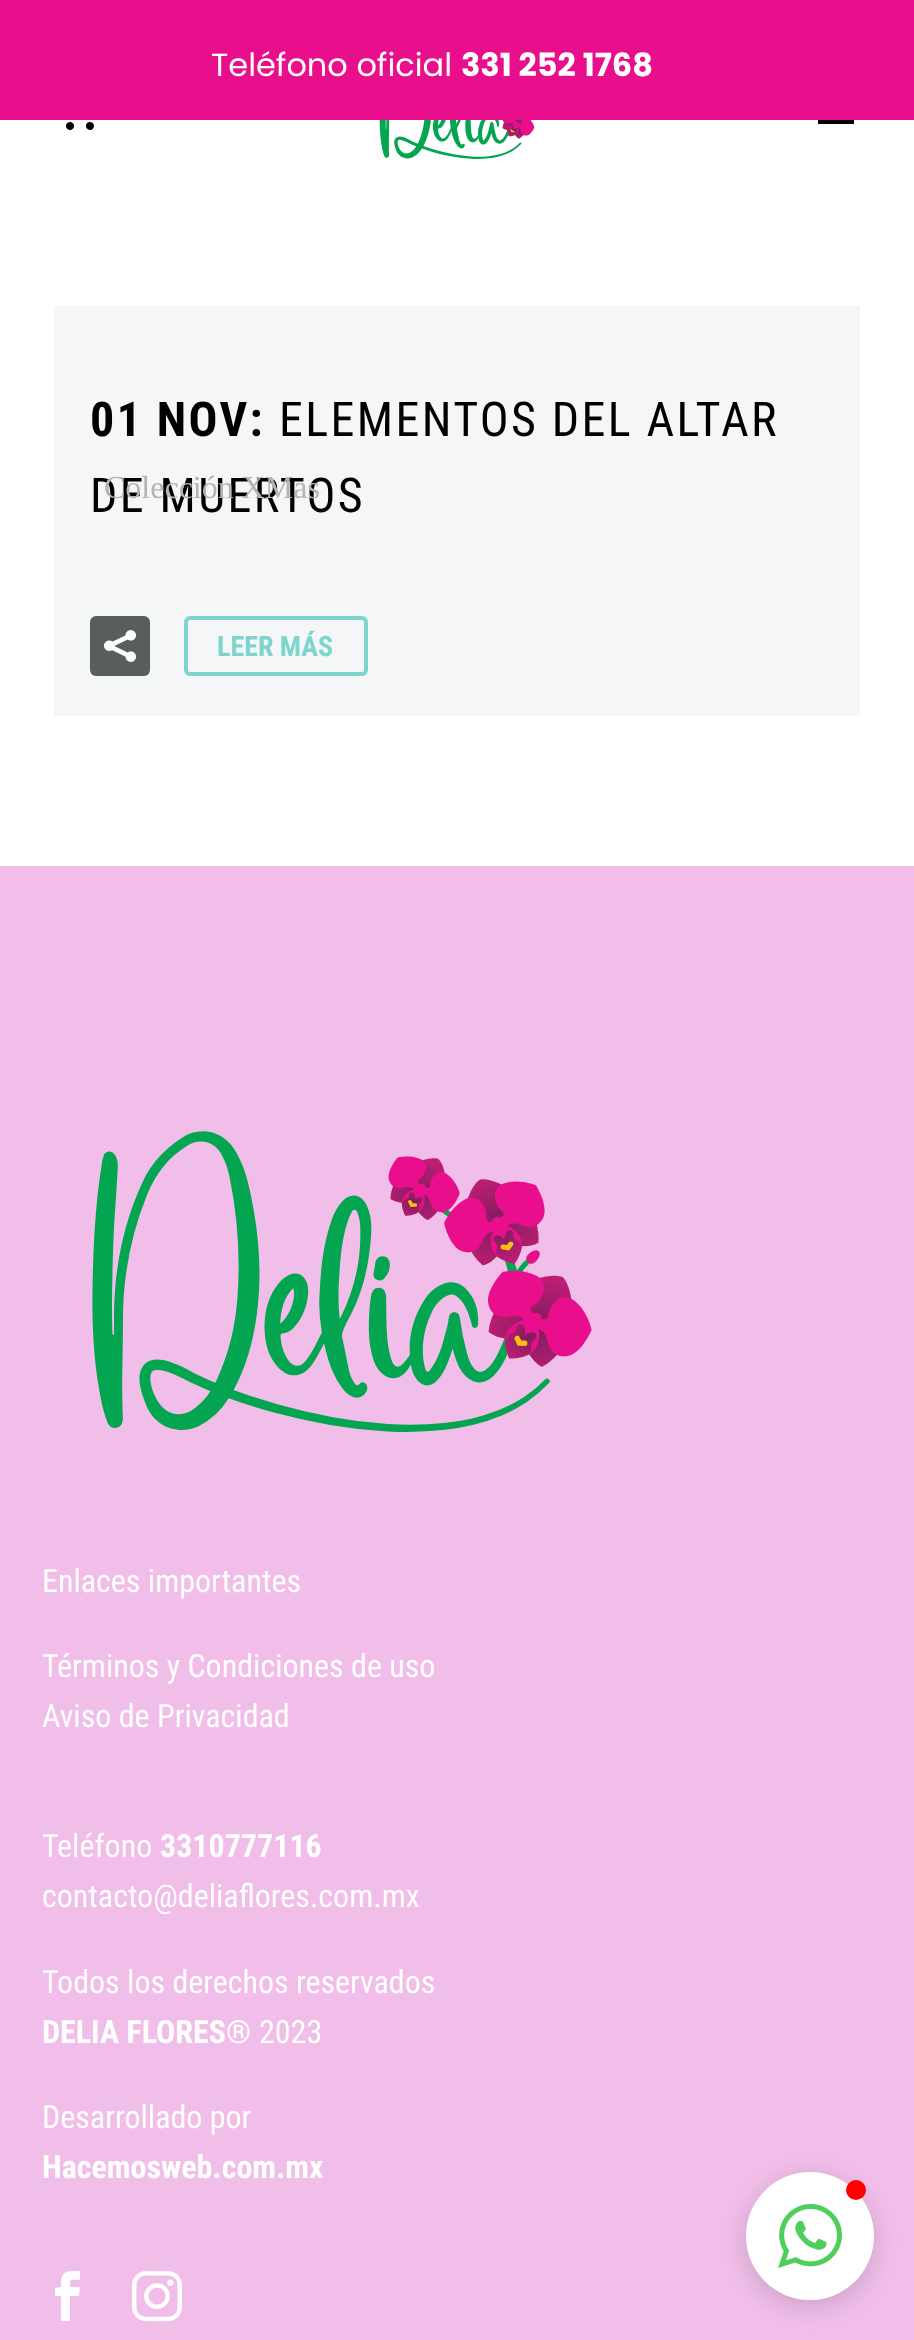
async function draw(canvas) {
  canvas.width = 914
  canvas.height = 2340
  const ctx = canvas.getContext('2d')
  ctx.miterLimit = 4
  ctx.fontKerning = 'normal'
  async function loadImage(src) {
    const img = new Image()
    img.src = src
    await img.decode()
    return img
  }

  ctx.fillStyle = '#fff'
  ctx.fillRect(0, 0, 914, 2340)
  ctx.fillStyle = '#e90e8b'
  ctx.fillRect(0, 0, 914, 120)
  ctx.font = '32px Poppins'
  ctx.fillStyle = '#fff'
  ctx.fillText('Teléfono oficial', 211, 76)
  ctx.font = 'bold 32px Poppins'
  ctx.fillText('331 252 1768', 461, 76)
  ctx.fillStyle = '#f4f6f7'
  ctx.fillRect(54, 306, 806, 410)
  ctx.letterSpacing = '2.4px'
  ctx.font = 'bold 48px Roboto Condensed'
  ctx.fillStyle = '#000'
  ctx.fillText('01 NOV:', 90, 436)
  ctx.font = '48px Roboto Condensed'
  ctx.fillText('ELEMENTOS DEL ALTAR', 279, 436)
  ctx.fillText('DE MUERTOS', 90, 512)
  ctx.fillStyle = '#585d5e'
  ctx.beginPath()
  ctx.roundRect(90, 616, 60, 60, 6)
  ctx.fill()
  ctx.drawImage(await loadImage('image0.png'), 104, 630, 32, 32)
  ctx.beginPath()
  ctx.roundRect(186, 618, 180, 56, 4)
  ctx.strokeStyle = '#7dd5cd'
  ctx.lineWidth = 4
  ctx.stroke()
  ctx.letterSpacing = '0px'
  ctx.font = 'bold 28px Roboto Condensed'
  ctx.fillStyle = '#7dd5cd'
  ctx.fillText('LEER MÁS', 217, 656)
  ctx.drawImage(await loadImage('image1.png'), 66, 122, 28, 8)
  ctx.drawImage(await loadImage('image2.png'), 379, 120, 156, 39)
  ctx.fillStyle = '#000'
  ctx.fillRect(818, 120, 36, 4)
  ctx.font = '32px Liberation Serif'
  ctx.fillStyle = '#b3b5b5'
  ctx.fillText('Colección XMas', 104, 498)
  ctx.fillStyle = '#f0bee9'
  ctx.fillRect(0, 866, 914, 1474)
  ctx.drawImage(await loadImage('image3.png'), 92, 1131, 500, 301)
  ctx.font = '32px Roboto Condensed'
  ctx.fillStyle = '#fff'
  ctx.fillText('Enlaces importantes', 42, 1592)
  ctx.fillText('Términos y Condiciones de uso', 42, 1677)
  ctx.fillText('Aviso de Privacidad', 42, 1727)
  ctx.fillText('Teléfono', 42, 1857)
  ctx.font = 'bold 32px Roboto Condensed'
  ctx.fillText('3310777116', 160, 1857)
  ctx.font = '32px Roboto Condensed'
  ctx.fillText('contacto@deliaflores.com.mx', 42, 1907)
  ctx.fillText('Todos los derechos reservados', 42, 1993)
  ctx.font = 'bold 32px Roboto Condensed'
  ctx.fillText('DELIA FLORES®', 42, 2043)
  ctx.font = '32px Roboto Condensed'
  ctx.fillText('2023', 259, 2043)
  ctx.fillText('Desarrollado por', 42, 2128)
  ctx.font = 'bold 32px Roboto Condensed'
  ctx.fillText('Hacemosweb.com.mx', 42, 2178)
  ctx.beginPath()
  ctx.moveTo(61, 2321)
  ctx.lineTo(70, 2321)
  ctx.lineTo(70, 2296)
  ctx.lineTo(79, 2296)
  ctx.lineTo(80, 2287)
  ctx.lineTo(70, 2287)
  ctx.bezierCurveTo(70, 2278, 70, 2280, 80, 2280)
  ctx.lineTo(80, 2271)
  ctx.bezierCurveTo(64, 2271, 61, 2271, 61, 2287)
  ctx.lineTo(55, 2288)
  ctx.lineTo(55, 2296)
  ctx.lineTo(61, 2296)
  ctx.closePath()
  ctx.fill()
  ctx.drawImage(await loadImage('image4.png'), 132, 2271, 50, 51)
  ctx.fillStyle = '#00000026'
  ctx.filter = 'blur(12px)'
  ctx.beginPath()
  ctx.roundRect(746, 2178, 128, 128, 64)
  ctx.fill()
  ctx.filter = 'none'
  ctx.fillStyle = '#fff'
  ctx.beginPath()
  ctx.arc(810, 2236, 64, 0, 2 * Math.PI)
  ctx.fill()
  ctx.fillStyle = '#f00'
  ctx.beginPath()
  ctx.arc(856, 2190, 10, 0, 2 * Math.PI)
  ctx.fill()
  ctx.drawImage(await loadImage('image5.png'), 778, 2204, 64, 64)
}

draw(document.querySelector('canvas'))
